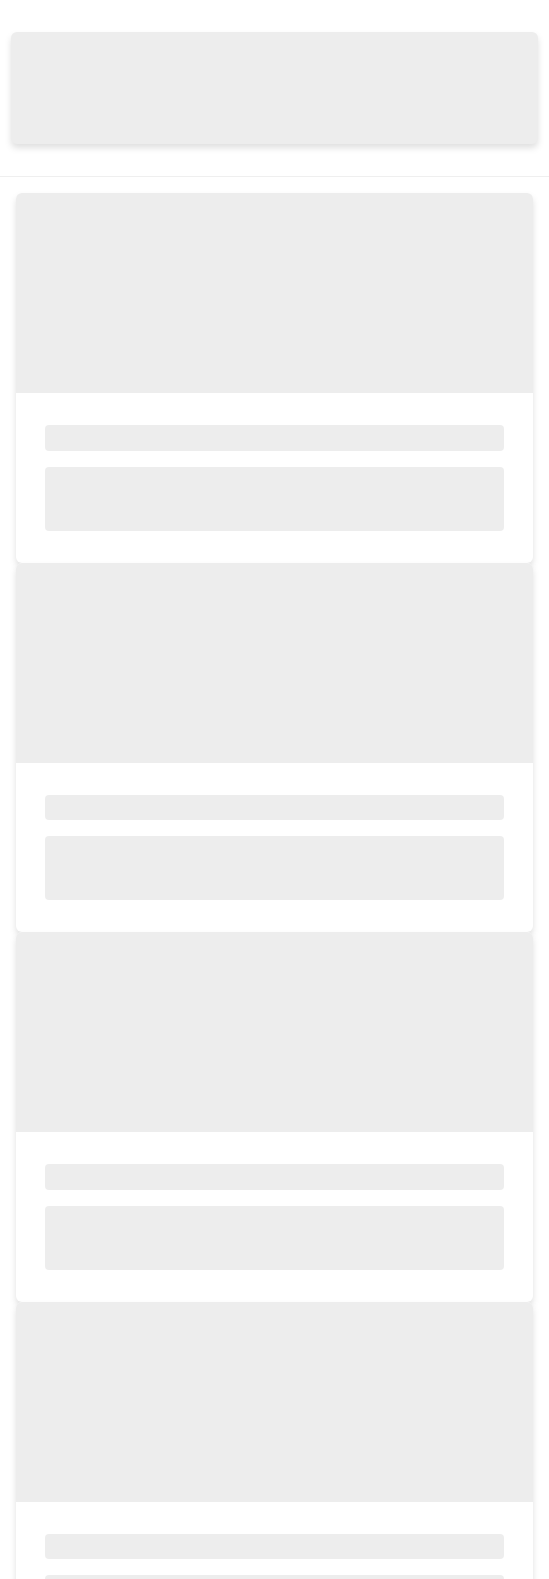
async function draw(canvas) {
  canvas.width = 549
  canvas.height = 1579
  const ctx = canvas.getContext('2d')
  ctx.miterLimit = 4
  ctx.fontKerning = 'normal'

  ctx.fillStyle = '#fff'
  ctx.fillRect(0, 0, 549, 1579)
  ctx.fillStyle = '#efefef'
  ctx.fillRect(0, 176, 549, 1)
  ctx.fillStyle = '#0000001f'
  ctx.filter = 'blur(3px)'
  ctx.beginPath()
  ctx.roundRect(11, 36, 527, 112, 6)
  ctx.fill()
  ctx.filter = 'none'
  ctx.fillStyle = '#ededed'
  ctx.beginPath()
  ctx.roundRect(11, 32, 527, 112, 6)
  ctx.fill()
  ctx.fillStyle = '#0000001f'
  ctx.filter = 'blur(3px)'
  ctx.beginPath()
  ctx.roundRect(16, 197, 517, 370, 6)
  ctx.fill()
  ctx.filter = 'none'
  ctx.fillStyle = '#fff'
  ctx.beginPath()
  ctx.roundRect(16, 193, 517, 370, 6)
  ctx.fill()
  ctx.fillStyle = '#ededed'
  ctx.beginPath()
  ctx.roundRect(16, 193, 517, 200, [6, 6, 0, 0])
  ctx.fill()
  ctx.beginPath()
  ctx.roundRect(45, 425, 459, 26, 4)
  ctx.fill()
  ctx.beginPath()
  ctx.roundRect(45, 467, 459, 64, 4)
  ctx.fill()
  ctx.fillStyle = '#0000001f'
  ctx.filter = 'blur(3px)'
  ctx.beginPath()
  ctx.roundRect(16, 567, 517, 369, 6)
  ctx.fill()
  ctx.filter = 'none'
  ctx.fillStyle = '#fff'
  ctx.beginPath()
  ctx.roundRect(16, 563, 517, 369, 6)
  ctx.fill()
  ctx.fillStyle = '#ededed'
  ctx.beginPath()
  ctx.roundRect(16, 563, 517, 200, [6, 6, 0, 0])
  ctx.fill()
  ctx.beginPath()
  ctx.roundRect(45, 795, 459, 25, 4)
  ctx.fill()
  ctx.beginPath()
  ctx.roundRect(45, 836, 459, 64, 4)
  ctx.fill()
  ctx.fillStyle = '#0000001f'
  ctx.filter = 'blur(3px)'
  ctx.beginPath()
  ctx.roundRect(16, 936, 517, 370, 6)
  ctx.fill()
  ctx.filter = 'none'
  ctx.fillStyle = '#fff'
  ctx.beginPath()
  ctx.roundRect(16, 932, 517, 370, 6)
  ctx.fill()
  ctx.fillStyle = '#ededed'
  ctx.beginPath()
  ctx.roundRect(16, 932, 517, 200, [6, 6, 0, 0])
  ctx.fill()
  ctx.beginPath()
  ctx.roundRect(45, 1164, 459, 26, 4)
  ctx.fill()
  ctx.beginPath()
  ctx.roundRect(45, 1206, 459, 64, 4)
  ctx.fill()
  ctx.fillStyle = '#0000001f'
  ctx.filter = 'blur(3px)'
  ctx.beginPath()
  ctx.roundRect(16, 1306, 517, 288, 6)
  ctx.fill()
  ctx.filter = 'none'
  ctx.fillStyle = '#fff'
  ctx.beginPath()
  ctx.roundRect(16, 1302, 517, 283, 6)
  ctx.fill()
  ctx.fillStyle = '#ededed'
  ctx.beginPath()
  ctx.roundRect(16, 1302, 517, 200, [6, 6, 0, 0])
  ctx.fill()
  ctx.beginPath()
  ctx.roundRect(45, 1534, 459, 25, 4)
  ctx.fill()
  ctx.beginPath()
  ctx.roundRect(45, 1575, 459, 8, 4)
  ctx.fill()
}

draw(document.querySelector('canvas'))
